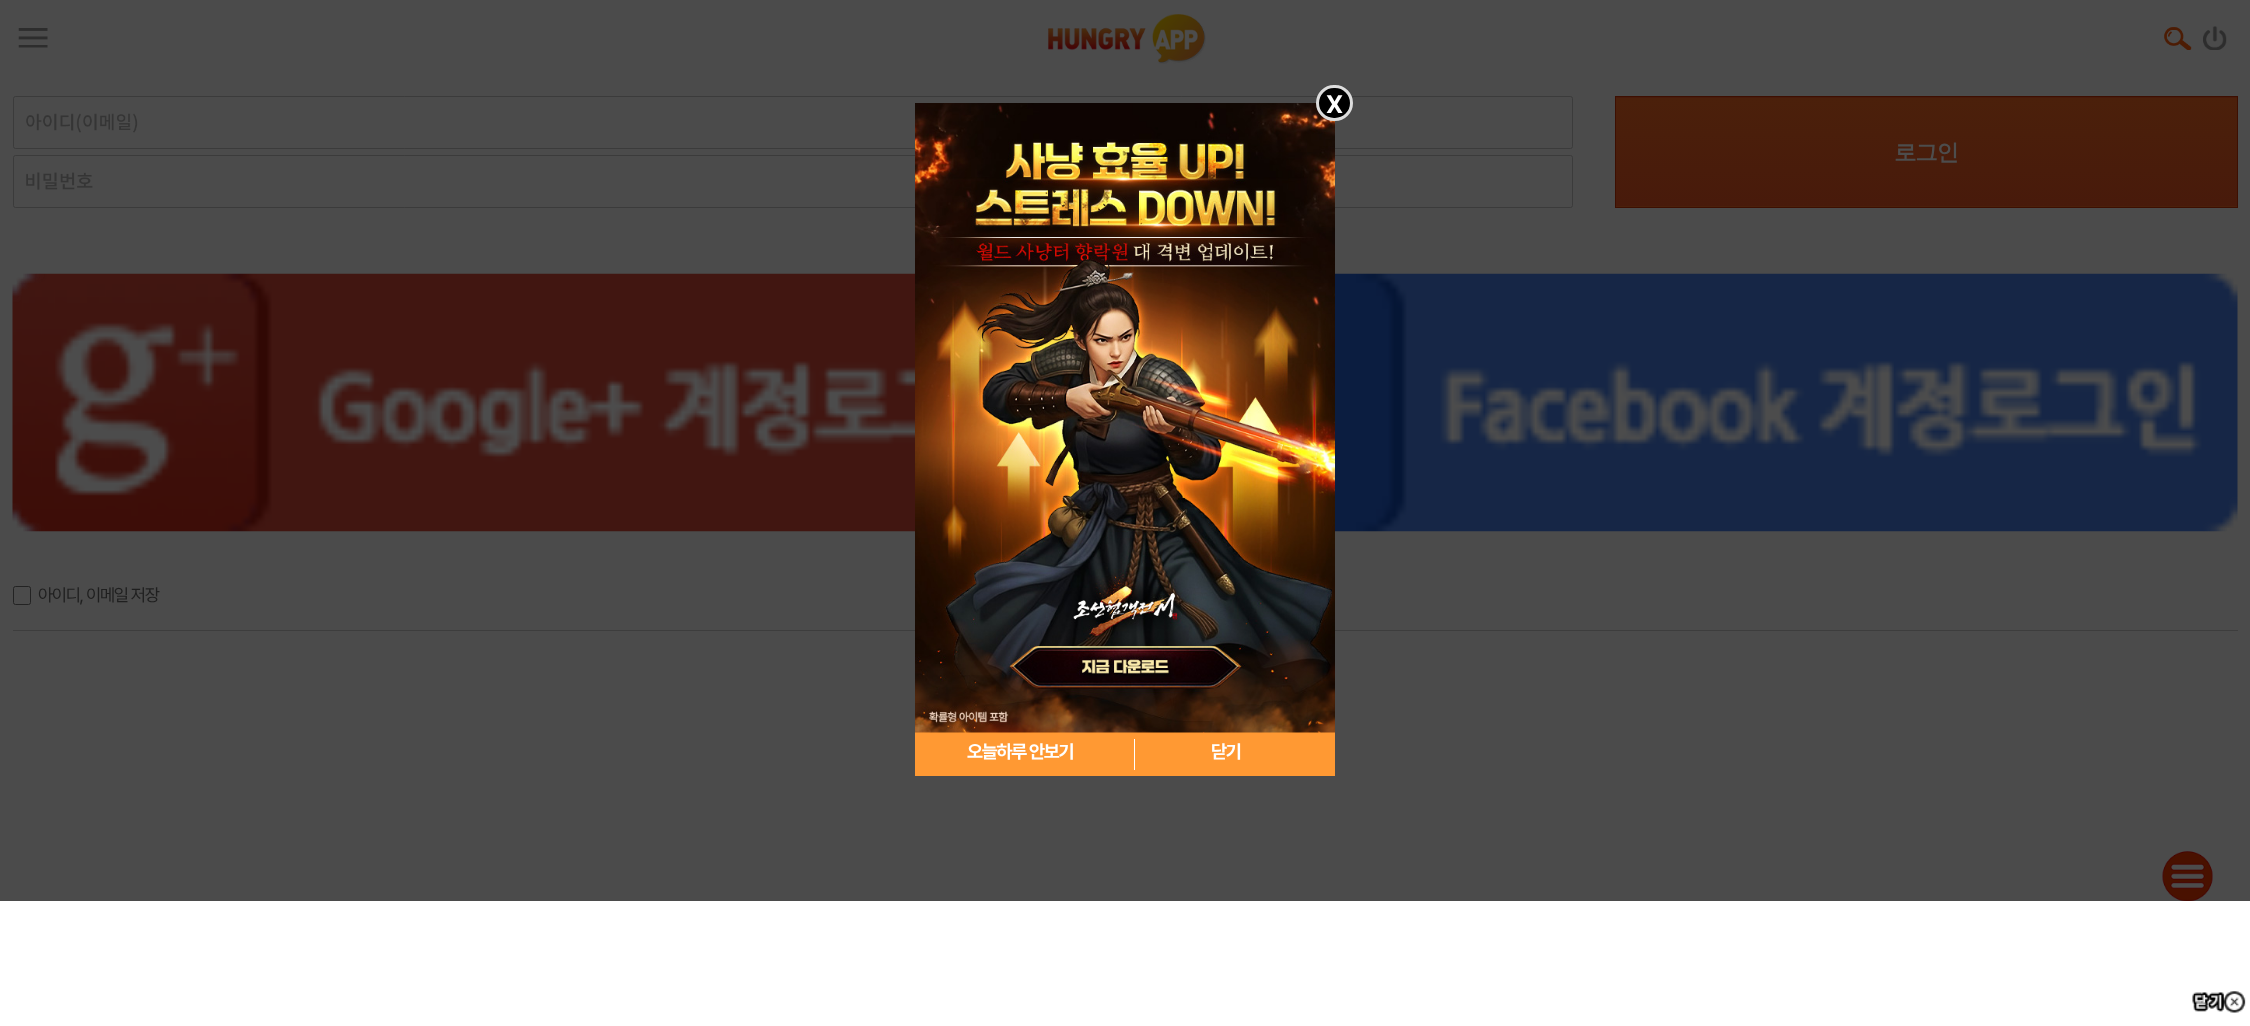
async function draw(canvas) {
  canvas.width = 2250
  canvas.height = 1026
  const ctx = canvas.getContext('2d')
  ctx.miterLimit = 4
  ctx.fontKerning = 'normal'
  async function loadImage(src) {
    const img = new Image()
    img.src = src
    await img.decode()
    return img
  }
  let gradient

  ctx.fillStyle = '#4b4b4b'
  ctx.fillRect(0, 0, 2250, 1026)
  ctx.drawImage(await loadImage('image0.png'), 1048, 14, 158, 50)
  ctx.drawImage(await loadImage('image1.png'), 18, 28, 30, 20)
  ctx.drawImage(await loadImage('image2.png'), 2164, 27, 28, 23)
  ctx.drawImage(await loadImage('image3.png'), 2203, 26, 24, 24)
  ctx.fillStyle = '#f93'
  ctx.fillRect(915, 732, 420, 44)
  ctx.beginPath()
  ctx.roundRect(13.5, 96.5, 1559, 52, 2)
  ctx.strokeStyle = '#3b3b3b'
  ctx.stroke()
  ctx.beginPath()
  ctx.roundRect(13.5, 155.5, 1559, 52, 2)
  ctx.stroke()
  ctx.fillStyle = '#3d3d3d'
  ctx.fillRect(13, 630, 2225, 1)
  ctx.drawImage(await loadImage('image4.png'), 915, 103, 420, 630)
  ctx.fillStyle = '#000'
  ctx.beginPath()
  ctx.roundRect(1317.5, 86.5, 34, 33, 16.5)
  ctx.fill()
  ctx.strokeStyle = '#ddd'
  ctx.lineWidth = 3
  ctx.stroke()
  ctx.letterSpacing = '-1.25px'
  ctx.font = 'bold 25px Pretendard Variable'
  ctx.fillStyle = '#fff'
  ctx.fillText('X', 1326, 113)
  ctx.font = 'bold 18.5px Pretendard Variable'
  ctx.fillText('오늘하루 안보기', 967, 758)
  ctx.fillRect(1134, 739, 1, 31)
  ctx.fillText('닫기', 1211, 758)
  ctx.drawImage(await loadImage('image5.png'), 26, 113, 112, 20)
  gradient = ctx.createLinearGradient(1616, -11, 1616, 98)
  gradient.addColorStop(0, '#4b200b')
  gradient.addColorStop(1, '#481a0b')
  ctx.fillStyle = gradient
  ctx.fillRect(1615, 97, 623, 1)
  gradient = ctx.createLinearGradient(1616, 98, 1616, 206)
  gradient.addColorStop(0, '#4b200b')
  gradient.addColorStop(1, '#481a0b')
  ctx.fillStyle = gradient
  ctx.fillRect(1616, 98, 621, 108)
  gradient = ctx.createLinearGradient(1616, 206, 1616, 315)
  gradient.addColorStop(0, '#4b200b')
  gradient.addColorStop(1, '#481a0b')
  ctx.fillStyle = gradient
  ctx.fillRect(1615, 206, 623, 1)
  ctx.strokeStyle = '#3d0f01'
  ctx.lineWidth = 1
  ctx.strokeRect(1615.5, 96.5, 622, 111)
  ctx.font = 'bold 22.5px WenQuanYi Zen Hei'
  ctx.fillStyle = '#4d4d4d'
  ctx.fillText('로그인', 1894, 160)
  ctx.drawImage(await loadImage('image6.png'), 26, 172, 67, 18)
  ctx.drawImage(await loadImage('image7.png'), 12, 273, 903, 259)
  ctx.drawImage(await loadImage('image8.png'), 1335, 273, 903, 259)
  ctx.beginPath()
  ctx.roundRect(13.5, 586.5, 17, 18, 2)
  ctx.strokeStyle = '#232323'
  ctx.stroke()
  ctx.font = '17.5px Pretendard Variable'
  ctx.fillStyle = '#1f1f1f'
  ctx.fillText('아이디, 이메일 저장', 38, 601)
  ctx.drawImage(await loadImage('image9.png'), 2162, 851, 51, 50)
  ctx.fillStyle = '#fff'
  ctx.fillRect(0, 901, 2250, 125)
  ctx.drawImage(await loadImage('image10.png'), 2192, 991, 54, 22)
}

draw(document.querySelector('canvas'))
